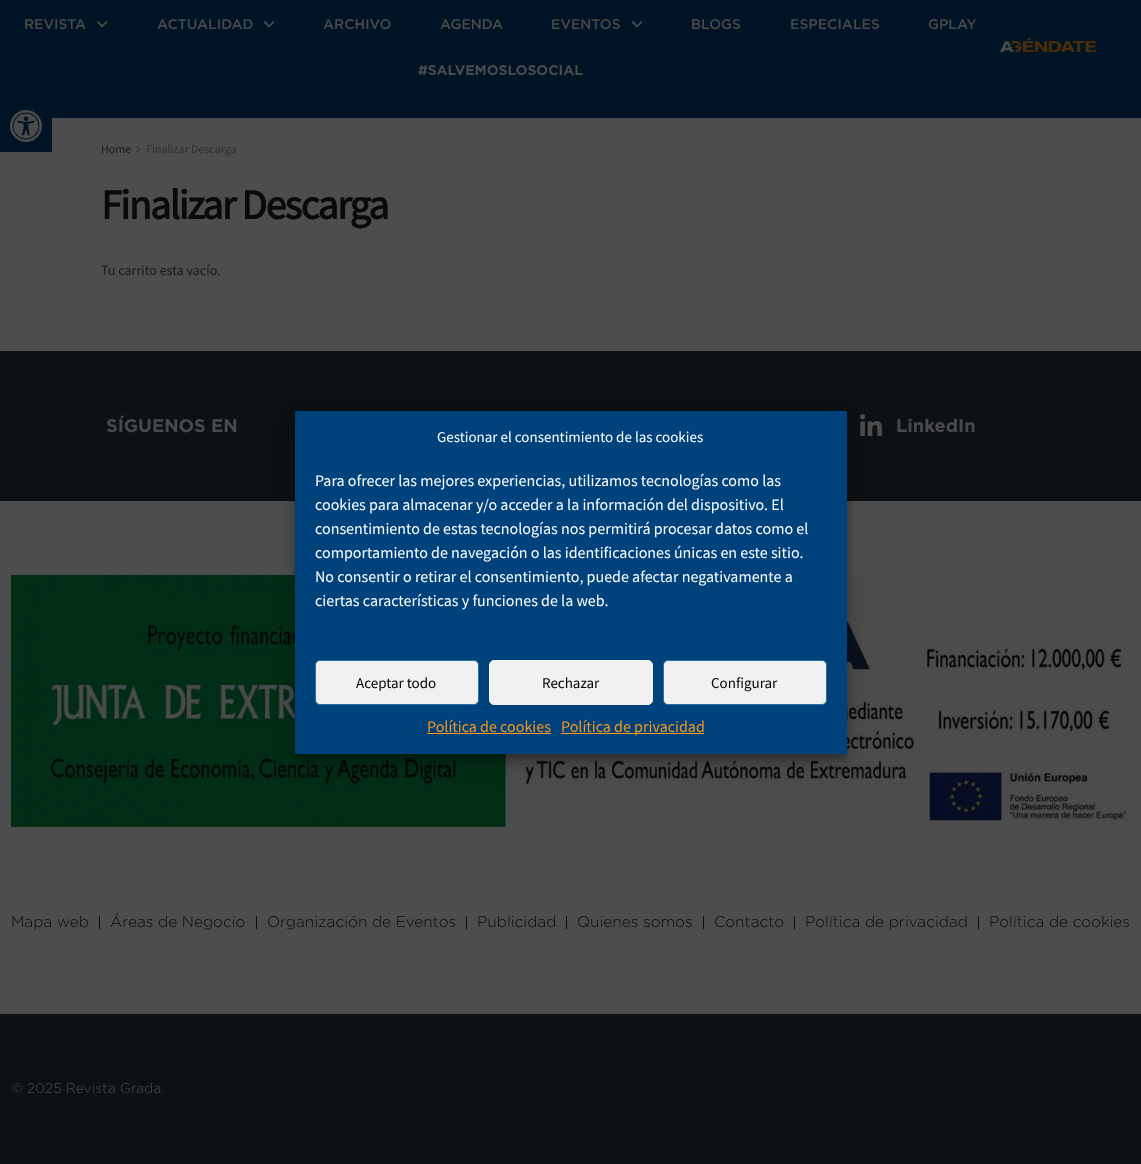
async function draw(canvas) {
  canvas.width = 1141
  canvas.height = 1164
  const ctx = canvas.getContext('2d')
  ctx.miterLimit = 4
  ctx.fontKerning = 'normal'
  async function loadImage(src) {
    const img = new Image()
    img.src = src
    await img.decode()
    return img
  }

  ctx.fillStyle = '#4d4d4d'
  ctx.fillRect(0, 0, 1141, 1164)
  ctx.fillStyle = '#001425'
  ctx.fillRect(0, 0, 1141, 118)
  ctx.font = '500 14px Gotham'
  ctx.fillStyle = '#494a4c'
  ctx.fillText('REVISTA', 24, 29)
  ctx.drawImage(await loadImage('image0.png'), 97, 21, 11, 7)
  ctx.fillText('ACTUALIDAD', 157, 29)
  ctx.drawImage(await loadImage('image0.png'), 264, 21, 11, 7)
  ctx.fillText('ARCHIVO', 323, 29)
  ctx.fillText('AGENDA', 440, 29)
  ctx.fillText('EVENTOS', 551, 29)
  ctx.drawImage(await loadImage('image0.png'), 632, 21, 11, 7)
  ctx.fillText('BLOGS', 691, 29)
  ctx.fillText('ESPECIALES', 790, 29)
  ctx.fillText('GPLAY', 928, 29)
  ctx.font = 'bold 14px Gotham'
  ctx.fillText('#SALVEMOSLOSOCIAL', 418, 75)
  ctx.drawImage(await loadImage('image1.png'), 1000, 38, 96, 14)
  ctx.fillStyle = '#001425'
  ctx.fillRect(0, 118, 52, 34)
  ctx.drawImage(await loadImage('image2.png'), 10, 110, 32, 32)
  ctx.font = '12px Source Sans Pro'
  ctx.fillStyle = '#191a1c'
  ctx.fillText('Home', 101, 153)
  ctx.drawImage(await loadImage('image3.png'), 136, 145, 4, 8)
  ctx.fillStyle = '#303030'
  ctx.fillText('Finalizar Descarga', 146, 153)
  ctx.letterSpacing = '-1.7px'
  ctx.font = 'bold 42px Source Sans Pro'
  ctx.fillStyle = '#0a0a0a'
  ctx.fillText('Finalizar Descarga', 101, 219)
  ctx.letterSpacing = '0px'
  ctx.font = '14px Source Sans Pro'
  ctx.fillStyle = '#191a1c'
  ctx.fillText('Tu carrito esta vacío.', 101, 275)
  ctx.fillStyle = '#0e1114'
  ctx.fillRect(0, 351, 1141, 150)
  ctx.font = 'bold 18.25px Gotham'
  ctx.fillStyle = '#494a4c'
  ctx.fillText('SÍGUENOS EN', 106, 432)
  ctx.drawImage(await loadImage('image4.png'), 860, 414, 22, 22)
  ctx.fillText('LinkedIn', 896, 432)
  ctx.drawImage(await loadImage('image5.png'), 11, 575, 1120, 252)
  ctx.font = '300 15.4px Gotham'
  ctx.fillStyle = '#0a0a0a'
  ctx.fillText('Mapa web', 11, 927)
  ctx.fillStyle = '#0f0f0f'
  ctx.fillRect(99, 916, 1, 13)
  ctx.fillStyle = '#0a0a0a'
  ctx.fillText('Áreas de Negocio', 110, 927)
  ctx.fillStyle = '#0f0f0f'
  ctx.fillRect(256, 916, 1, 13)
  ctx.fillStyle = '#0a0a0a'
  ctx.fillText('Organización de Eventos', 267, 927)
  ctx.fillStyle = '#0f0f0f'
  ctx.fillRect(466, 916, 1, 13)
  ctx.fillStyle = '#0a0a0a'
  ctx.fillText('Publicidad', 477, 927)
  ctx.fillStyle = '#0f0f0f'
  ctx.fillRect(566, 916, 1, 13)
  ctx.fillStyle = '#0a0a0a'
  ctx.fillText('Quienes somos', 577, 927)
  ctx.fillStyle = '#0f0f0f'
  ctx.fillRect(703, 916, 1, 13)
  ctx.fillStyle = '#0a0a0a'
  ctx.fillText('Contacto', 714, 927)
  ctx.fillStyle = '#0f0f0f'
  ctx.fillRect(794, 916, 1, 13)
  ctx.fillStyle = '#0a0a0a'
  ctx.fillText('Política de privacidad', 805, 927)
  ctx.fillStyle = '#0f0f0f'
  ctx.fillRect(978, 916, 1, 13)
  ctx.fillStyle = '#0a0a0a'
  ctx.fillText('Política de cookies', 989, 927)
  ctx.fillStyle = '#0e1114'
  ctx.fillRect(0, 1014, 1141, 150)
  ctx.font = '300 14px Gotham'
  ctx.fillStyle = '#494a4c'
  ctx.fillText('© 2025 Revista Grada.', 11, 1093)
  ctx.fillStyle = '#0000003b'
  ctx.filter = 'blur(3px)'
  ctx.beginPath()
  ctx.rect(295, 417, 552, 343)
  ctx.fill()
  ctx.filter = 'none'
  ctx.fillStyle = '#00000030'
  ctx.filter = 'blur(10px)'
  ctx.beginPath()
  ctx.rect(295, 421, 552, 343)
  ctx.fill()
  ctx.filter = 'none'
  ctx.fillStyle = '#00437c'
  ctx.fillRect(295, 411, 552, 343)
  ctx.font = '15px Source Sans Pro'
  ctx.fillStyle = '#fff'
  ctx.fillText('Gestionar el consentimiento de las cookies', 437, 442)
  ctx.font = '16px Source Sans Pro'
  ctx.fillText('Para ofrecer las mejores experiencias, utilizamos tecnologías como las', 315, 486)
  ctx.fillText('cookies para almacenar y/o acceder a la información del dispositivo. El', 315, 510)
  ctx.fillText('consentimiento de estas tecnologías nos permitirá procesar datos como el', 315, 534)
  ctx.fillText('comportamiento de navegación o las identificaciones únicas en este sitio.', 315, 558)
  ctx.fillText('No consentir o retirar el consentimiento, puede afectar negativamente a', 315, 582)
  ctx.fillText('ciertas características y funciones de la web.', 315, 606)
  ctx.fillStyle = '#f1f1f1'
  ctx.beginPath()
  ctx.roundRect(315.5, 660.5, 163, 44, 4.5)
  ctx.fill()
  ctx.strokeStyle = '#21759b'
  ctx.stroke()
  ctx.font = '15px Source Sans Pro'
  ctx.fillStyle = '#000'
  ctx.fillText('Aceptar todo', 356, 688)
  ctx.fillStyle = '#f1f1f1'
  ctx.beginPath()
  ctx.roundRect(489.5, 660.5, 163, 44, 4.5)
  ctx.fill()
  ctx.strokeStyle = '#f1f1f1'
  ctx.stroke()
  ctx.fillStyle = '#000'
  ctx.fillText('Rechazar', 542, 688)
  ctx.fillStyle = '#f1f1f1'
  ctx.beginPath()
  ctx.roundRect(663.5, 660.5, 163, 44, 4.5)
  ctx.fill()
  ctx.strokeStyle = '#21759b'
  ctx.stroke()
  ctx.fillStyle = '#000'
  ctx.fillText('Configurar', 711, 688)
  ctx.font = '16px Source Sans Pro'
  ctx.fillStyle = '#f8971d'
  ctx.fillText('Política de cookies', 427, 732)
  ctx.fillRect(427, 733, 124, 1)
  ctx.fillRect(561, 733, 143, 1)
  ctx.fillText('Política de privacidad', 561, 732)
}

draw(document.querySelector('canvas'))
